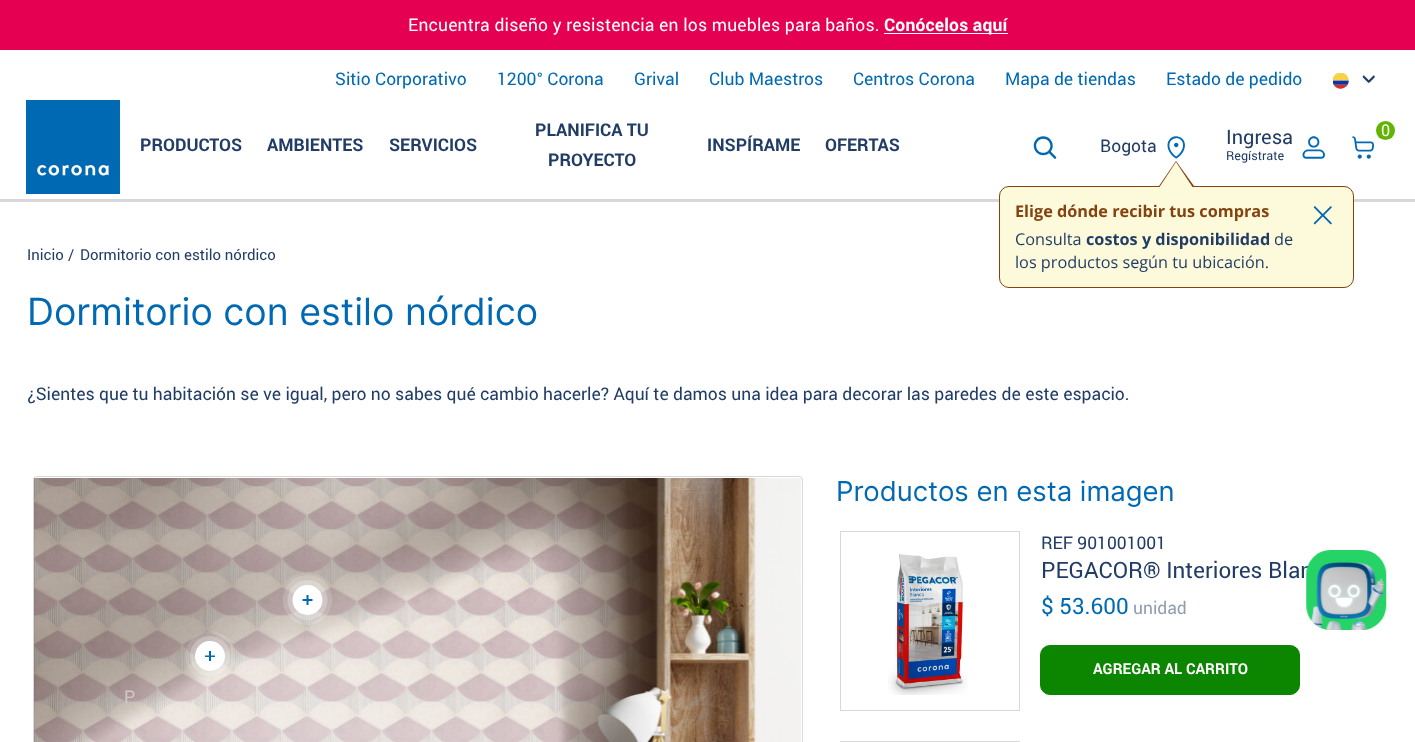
async function draw(canvas) {
  canvas.width = 1415
  canvas.height = 742
  const ctx = canvas.getContext('2d')
  ctx.miterLimit = 4
  ctx.fontKerning = 'normal'
  async function loadImage(src) {
    const img = new Image()
    img.src = src
    await img.decode()
    return img
  }

  ctx.fillStyle = '#fff'
  ctx.fillRect(0, 0, 1415, 742)
  ctx.fillStyle = '#e50051'
  ctx.fillRect(0, 0, 1415, 50)
  ctx.letterSpacing = '0.18px'
  ctx.font = '17.5px Roboto'
  ctx.fillStyle = '#fff'
  ctx.fillText('Encuentra diseño y resistencia en los muebles para baños.', 408, 31)
  ctx.fillRect(884, 33, 124, 1)
  ctx.font = 'bold 17.5px Roboto'
  ctx.fillText('Conócelos aquí', 884, 31)
  ctx.fillStyle = '#d8d8d8'
  ctx.fillRect(0, 199, 1415, 3)
  ctx.letterSpacing = '0px'
  ctx.font = '17.5px Roboto'
  ctx.fillStyle = '#0069b4'
  ctx.fillText('Sitio Corporativo', 335, 85)
  ctx.fillText('1200° Corona', 497, 85)
  ctx.fillText('Grival', 634, 85)
  ctx.fillText('Club Maestros', 709, 85)
  ctx.fillText('Centros Corona', 853, 85)
  ctx.fillText('Mapa de tiendas', 1005, 85)
  ctx.fillText('Estado de pedido', 1166, 85)
  ctx.drawImage(await loadImage('image0.png'), 1333, 73, 16, 16)
  ctx.drawImage(await loadImage('image1.png'), 1362, 75, 13, 8)
  ctx.drawImage(await loadImage('image2.png'), 26, 100, 94, 94)
  ctx.font = 'bold 17.5px Roboto'
  ctx.fillStyle = '#213c65'
  ctx.fillText('PRODUCTOS', 140, 151)
  ctx.fillText('AMBIENTES', 267, 151)
  ctx.fillText('SERVICIOS', 389, 151)
  ctx.fillText('PLANIFICA TU', 535, 136)
  ctx.fillText('PROYECTO', 548, 166)
  ctx.fillText('INSPÍRAME', 707, 151)
  ctx.fillText('OFERTAS', 825, 151)
  ctx.drawImage(await loadImage('image3.png'), 1033, 136, 24, 23)
  ctx.font = '20px Roboto'
  ctx.fillText('Ingresa', 1226, 144)
  ctx.font = '12.5px Roboto'
  ctx.fillText('Regístrate', 1226, 160)
  ctx.drawImage(await loadImage('image4.png'), 1302, 136, 23, 23)
  ctx.fillStyle = '#62b403'
  ctx.beginPath()
  ctx.arc(1385.5, 130.5, 9.5, 0, 2 * Math.PI)
  ctx.fill()
  ctx.font = '16.25px Roboto'
  ctx.fillStyle = '#fff'
  ctx.fillText('0', 1381, 136)
  ctx.drawImage(await loadImage('image5.png'), 1352, 136, 22, 23)
  ctx.font = '17.5px Roboto'
  ctx.fillStyle = '#213c65'
  ctx.fillText('Bogota', 1100, 152)
  ctx.drawImage(await loadImage('image6.png'), 1167, 136, 18, 23)
  ctx.fillStyle = '#854211'
  ctx.beginPath()
  ctx.moveTo(1194, 186)
  ctx.lineTo(1159, 186)
  ctx.lineTo(1176, 161)
  ctx.closePath()
  ctx.fill()
  ctx.fillStyle = '#fdfadc'
  ctx.beginPath()
  ctx.roundRect(999.5, 186.5, 354, 101, 9.5)
  ctx.fill()
  ctx.strokeStyle = '#854211'
  ctx.stroke()
  ctx.beginPath()
  ctx.moveTo(1201, 200)
  ctx.lineTo(1151, 200)
  ctx.lineTo(1176, 162)
  ctx.closePath()
  ctx.fill()
  ctx.font = 'bold 16.25px Open Sans'
  ctx.fillStyle = '#854211'
  ctx.fillText('Elige dónde recibir tus compras', 1015, 217)
  ctx.font = '16.25px Open Sans'
  ctx.fillStyle = '#213c65'
  ctx.fillText('Consulta', 1015, 245)
  ctx.font = 'bold 16.25px Open Sans'
  ctx.fillText('costos y disponibilidad', 1086, 245)
  ctx.font = '16.25px Open Sans'
  ctx.fillText('de', 1274, 245)
  ctx.fillText('los productos según tu ubicación.', 1015, 268)
  ctx.drawImage(await loadImage('image7.png'), 1313, 206, 19, 19)
  ctx.font = '15px Roboto'
  ctx.fillText('Inicio', 27, 260)
  ctx.fillText('/', 68, 260)
  ctx.fillText('Dormitorio con estilo nórdico', 80, 260)
  ctx.font = '37.5px Inter'
  ctx.fillStyle = '#0069b4'
  ctx.fillText('Dormitorio con estilo nórdico', 27, 325)
  ctx.font = '17.5px Roboto'
  ctx.fillStyle = '#213c65'
  ctx.fillText('¿Sientes que tu habitación se ve igual, pero no sabes qué cambio hacerle? Aquí te damos una idea para decorar las paredes de este espacio.', 27, 400)
  ctx.font = '27.5px Inter'
  ctx.fillStyle = '#0069b4'
  ctx.fillText('Productos en esta imagen', 836, 501)
  ctx.strokeStyle = '#d8d8d8'
  ctx.strokeRect(840.5, 531.5, 179, 179)
  ctx.drawImage(await loadImage('image8.png'), 888, 554, 80, 141)
  ctx.font = '17.5px Roboto'
  ctx.fillStyle = '#213c65'
  ctx.fillText('REF 901001001', 1041, 549)
  ctx.font = '22.5px Roboto'
  ctx.fillText('PEGACOR® Interiores Blan', 1041, 578)
  ctx.fillStyle = '#0069b4'
  ctx.fillText('$ 53.600', 1041, 614)
  ctx.font = '17.5px Roboto'
  ctx.fillStyle = '#909eb2'
  ctx.fillText('unidad', 1133, 614)
  ctx.fillStyle = '#0c8501'
  ctx.beginPath()
  ctx.roundRect(1040.5, 645.5, 259, 49, 9.5)
  ctx.fill()
  ctx.strokeStyle = '#0c8501'
  ctx.stroke()
  ctx.font = 'bold 15px Roboto'
  ctx.fillStyle = '#fff'
  ctx.fillText('AGREGAR AL CARRITO', 1093, 674)
  ctx.strokeStyle = '#d8d8d8'
  ctx.strokeRect(840.5, 741.5, 179, 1)
  ctx.beginPath()
  ctx.roundRect(33.5, 476.5, 769, 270, 3.5)
  ctx.stroke()
  ctx.drawImage(await loadImage('image9.png'), 34, 478, 767, 264)
  ctx.fillStyle = '#ffffff42'
  ctx.beginPath()
  ctx.arc(307.5, 600, 20, 0, 2 * Math.PI)
  ctx.fill()
  ctx.fillStyle = '#ffffff29'
  ctx.beginPath()
  ctx.moveTo(308, 575)
  ctx.bezierCurveTo(321, 575, 332, 586, 332, 600)
  ctx.bezierCurveTo(332, 614, 321, 625, 308, 625)
  ctx.bezierCurveTo(294, 625, 283, 614, 283, 600)
  ctx.bezierCurveTo(283, 586, 294, 575, 308, 575)
  ctx.closePath()
  ctx.fill()
  ctx.fillStyle = '#fff'
  ctx.beginPath()
  ctx.arc(307.5, 600, 15, 0, 2 * Math.PI)
  ctx.fill()
  ctx.fillStyle = '#0069b4'
  ctx.beginPath()
  ctx.moveTo(308.5, 595)
  ctx.lineTo(308.5, 599)
  ctx.lineTo(312.5, 599)
  ctx.lineTo(312.5, 601)
  ctx.lineTo(308.5, 601)
  ctx.lineTo(308.5, 605)
  ctx.lineTo(306.5, 605)
  ctx.lineTo(306.5, 601)
  ctx.lineTo(302.5, 601)
  ctx.lineTo(302.5, 599)
  ctx.lineTo(306.5, 599)
  ctx.lineTo(306.5, 595)
  ctx.closePath()
  ctx.fill('evenodd')
  ctx.fillStyle = '#ffffff42'
  ctx.beginPath()
  ctx.arc(210, 656, 20, 0, 2 * Math.PI)
  ctx.fill()
  ctx.fillStyle = '#ffffff29'
  ctx.beginPath()
  ctx.arc(210, 656, 25, 0, 2 * Math.PI)
  ctx.fill()
  ctx.fillStyle = '#fff'
  ctx.beginPath()
  ctx.arc(210, 656, 15, 0, 2 * Math.PI)
  ctx.fill()
  ctx.fillStyle = '#0069b4'
  ctx.beginPath()
  ctx.moveTo(211, 651)
  ctx.lineTo(211, 655.5)
  ctx.lineTo(215, 655.5)
  ctx.lineTo(215, 657)
  ctx.lineTo(211, 657)
  ctx.lineTo(211, 661)
  ctx.lineTo(209, 661)
  ctx.lineTo(209, 657)
  ctx.lineTo(205, 657)
  ctx.lineTo(205, 655.5)
  ctx.lineTo(209, 655.5)
  ctx.lineTo(209, 651)
  ctx.closePath()
  ctx.fill('evenodd')
  ctx.font = '17.5px Roboto'
  ctx.fillStyle = '#d2c7c6'
  ctx.fillText('P', 124, 703)
  ctx.drawImage(await loadImage('image10.png'), 1306, 550, 81, 80)
}

draw(document.querySelector('canvas'))
